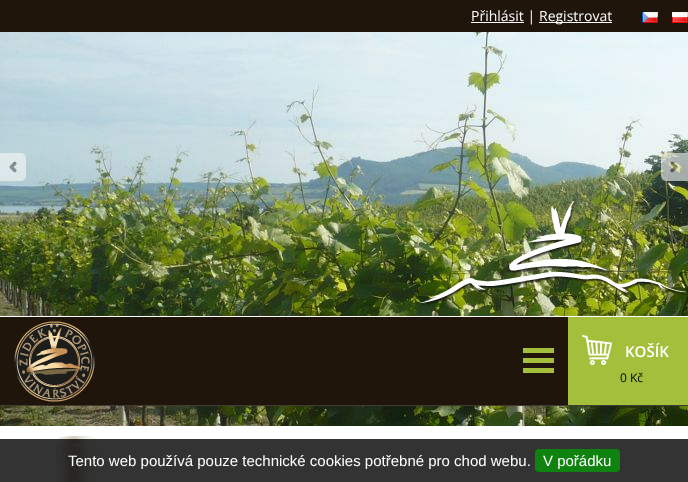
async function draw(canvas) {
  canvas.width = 688
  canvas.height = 482
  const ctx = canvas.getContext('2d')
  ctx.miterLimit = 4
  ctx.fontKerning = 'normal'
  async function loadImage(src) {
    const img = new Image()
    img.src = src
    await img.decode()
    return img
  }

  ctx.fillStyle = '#1f150b'
  ctx.fillRect(0, 0, 688, 482)
  ctx.fillStyle = '#fff'
  ctx.fillRect(471, 22, 53, 1)
  ctx.font = '14px Open Sans'
  ctx.fillText('Přihlásit |', 471, 21)
  ctx.fillRect(539, 22, 73, 1)
  ctx.fillText('Registrovat', 539, 21)
  ctx.drawImage(await loadImage('image0.png'), 642, 12, 16, 11)
  ctx.drawImage(await loadImage('image1.png'), 672, 12, 16, 11)
  ctx.drawImage(await loadImage('image2.png'), 0, 32, 688, 394)
  ctx.drawImage(await loadImage('image3.png'), 0, 153, 26, 28)
  ctx.drawImage(await loadImage('image4.png'), 661, 153, 27, 28)
  ctx.drawImage(await loadImage('image5.png'), 419, 201, 268, 105)
  ctx.fillStyle = '#1f150b'
  ctx.fillRect(0, 317, 568, 88)
  ctx.fillStyle = '#fff'
  ctx.fillRect(0, 316, 688, 1)
  ctx.fillStyle = '#423932'
  ctx.fillRect(0, 405, 688, 1)
  ctx.drawImage(await loadImage('image6.png'), 14, 321, 81, 85)
  ctx.drawImage(await loadImage('image7.png'), 523, 348, 31, 25)
  ctx.fillStyle = '#a3bf3b'
  ctx.fillRect(568, 317, 120, 88)
  ctx.drawImage(await loadImage('image8.png'), 582, 335, 30, 30)
  ctx.font = '600 15px Open Sans'
  ctx.fillStyle = '#fff'
  ctx.fillText('KOŠÍK', 625, 357)
  ctx.font = '12px Open Sans'
  ctx.fillStyle = '#000'
  ctx.fillText('0 Kč', 620, 382)
  ctx.fillStyle = '#fff'
  ctx.fillRect(0, 426, 688, 13)
  ctx.fillStyle = '#333'
  ctx.fillRect(0, 439, 688, 43)
  ctx.drawImage(await loadImage('image9.png'), 55, 436, 44, 46)
  ctx.font = '15px Liberation Sans'
  ctx.fillStyle = '#fff'
  ctx.fillText('Tento web používá pouze technické cookies potřebné pro chod webu.', 68, 466)
  ctx.fillStyle = '#10820f'
  ctx.beginPath()
  ctx.roundRect(535, 449, 85, 23, 4)
  ctx.fill()
  ctx.fillStyle = '#fff'
  ctx.fillText('V pořádku', 543, 466)
}

draw(document.querySelector('canvas'))
